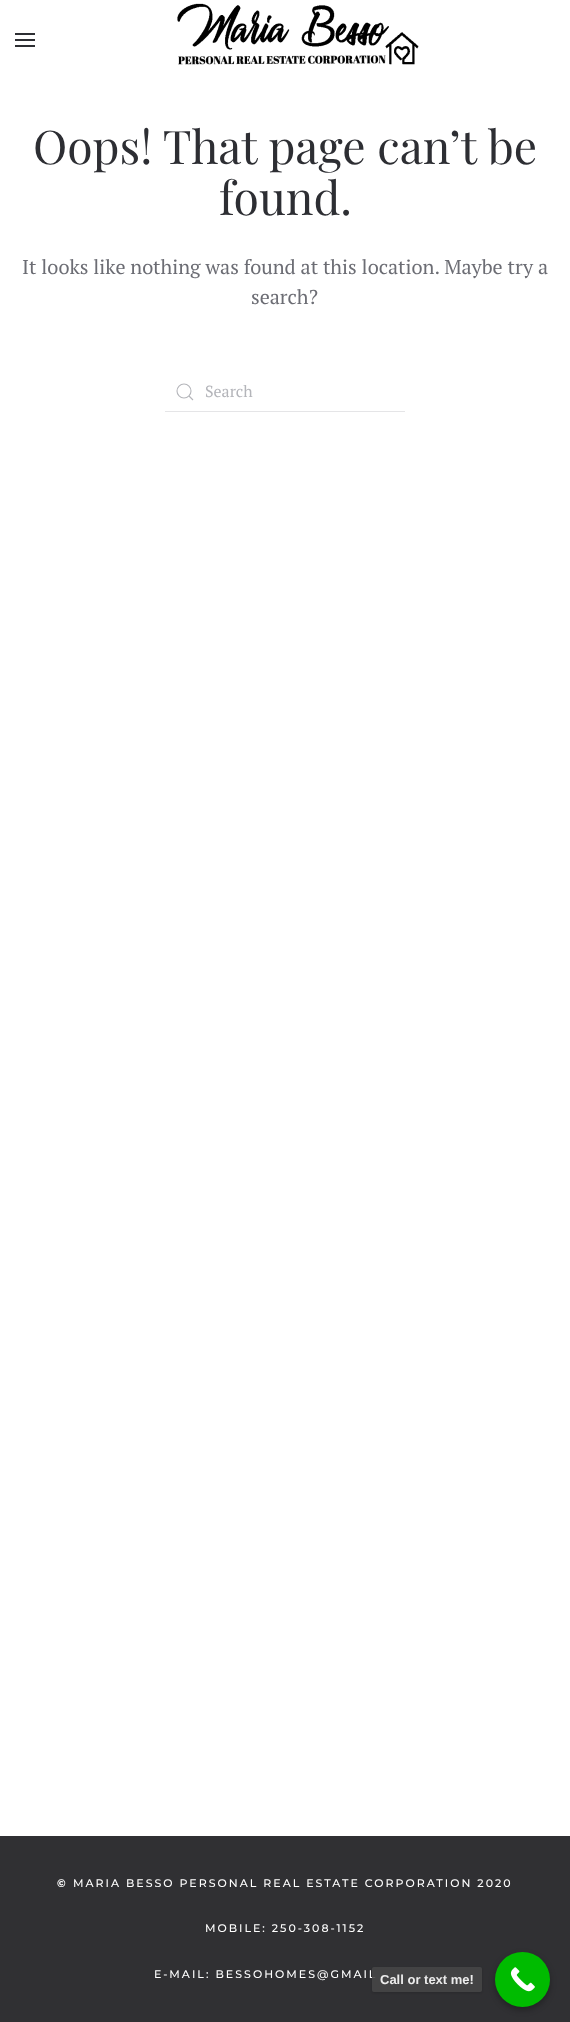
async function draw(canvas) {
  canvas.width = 570
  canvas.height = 2022
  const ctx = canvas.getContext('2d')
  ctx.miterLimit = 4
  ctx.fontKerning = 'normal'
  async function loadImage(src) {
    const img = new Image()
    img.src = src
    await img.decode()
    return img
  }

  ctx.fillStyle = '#fff'
  ctx.fillRect(0, 0, 570, 2022)
  ctx.fillStyle = '#2d2e33'
  ctx.fillRect(15, 33, 20, 2)
  ctx.fillRect(15, 39, 20, 2)
  ctx.fillRect(15, 45, 20, 2)
  ctx.drawImage(await loadImage('image0.png'), 177, 3, 242, 62)
  ctx.font = '46.25px Playfair Display'
  ctx.fillText('Oops! That page can’t be', 33, 164)
  ctx.fillText('found.', 219, 215)
  ctx.font = '20px PT Serif'
  ctx.fillStyle = '#6c6d74'
  ctx.fillText('It looks like nothing was found at this location. Maybe try a', 22, 274)
  ctx.fillText('search?', 251, 304)
  ctx.beginPath()
  ctx.arc(184, 391, 7, 0, 2 * Math.PI)
  ctx.strokeStyle = '#b4b5ba'
  ctx.lineWidth = 1.1
  ctx.stroke()
  ctx.beginPath()
  ctx.moveTo(189, 396)
  ctx.lineTo(193, 400)
  ctx.closePath()
  ctx.stroke()
  ctx.fillStyle = '#e5e5e7'
  ctx.fillRect(165, 411, 240, 1)
  ctx.font = '16px PT Serif'
  ctx.fillStyle = '#b4b5ba'
  ctx.fillText('Search', 205, 397)
  ctx.fillStyle = '#303033'
  ctx.fillRect(0, 1836, 570, 186)
  ctx.letterSpacing = '2px'
  ctx.font = 'bold 11px Montserrat'
  ctx.fillStyle = '#fff'
  ctx.fillText('©', 57, 1887)
  ctx.font = '500 11px Montserrat'
  ctx.fillText('MARIA BESSO PERSONAL REAL ESTATE CORPORATION 2020', 73, 1887)
  ctx.fillText('MOBILE: 250-308-1152', 205, 1932)
  ctx.fillText('E-MAIL: BESSOHOMES@GMAIL', 154, 1978)
  ctx.fillStyle = '#0000004d'
  ctx.filter = 'blur(3px)'
  ctx.beginPath()
  ctx.roundRect(495, 1955, 55, 55, 27.5)
  ctx.fill()
  ctx.filter = 'none'
  ctx.fillStyle = '#0b0'
  ctx.beginPath()
  ctx.arc(522.5, 1979.5, 27.5, 0, 2 * Math.PI)
  ctx.fill()
  ctx.drawImage(await loadImage('image1.png'), 510, 1967, 25, 25)
  ctx.save()
  ctx.beginPath()
  ctx.moveTo(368, 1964)
  ctx.lineTo(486, 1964)
  ctx.lineTo(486, 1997)
  ctx.lineTo(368, 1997)
  ctx.closePath()
  ctx.moveTo(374, 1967)
  ctx.lineTo(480, 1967)
  ctx.bezierCurveTo(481, 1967, 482, 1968, 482, 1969)
  ctx.lineTo(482, 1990)
  ctx.bezierCurveTo(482, 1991, 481, 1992, 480, 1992)
  ctx.lineTo(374, 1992)
  ctx.bezierCurveTo(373, 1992, 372, 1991, 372, 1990)
  ctx.lineTo(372, 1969)
  ctx.bezierCurveTo(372, 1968, 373, 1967, 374, 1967)
  ctx.closePath()
  ctx.clip('evenodd')
  ctx.fillStyle = '#00000026'
  ctx.filter = 'blur(1px)'
  ctx.beginPath()
  ctx.roundRect(372, 1968, 110, 25, 2)
  ctx.fill()
  ctx.filter = 'none'
  ctx.restore()
  ctx.fillStyle = '#464646e6'
  ctx.beginPath()
  ctx.roundRect(372, 1967, 110, 25, 2)
  ctx.fill()
  ctx.letterSpacing = '0px'
  ctx.font = 'bold 13px Liberation Sans'
  ctx.fillStyle = '#ececec'
  ctx.fillText('Call or text me!', 380, 1984)
}

draw(document.querySelector('canvas'))
